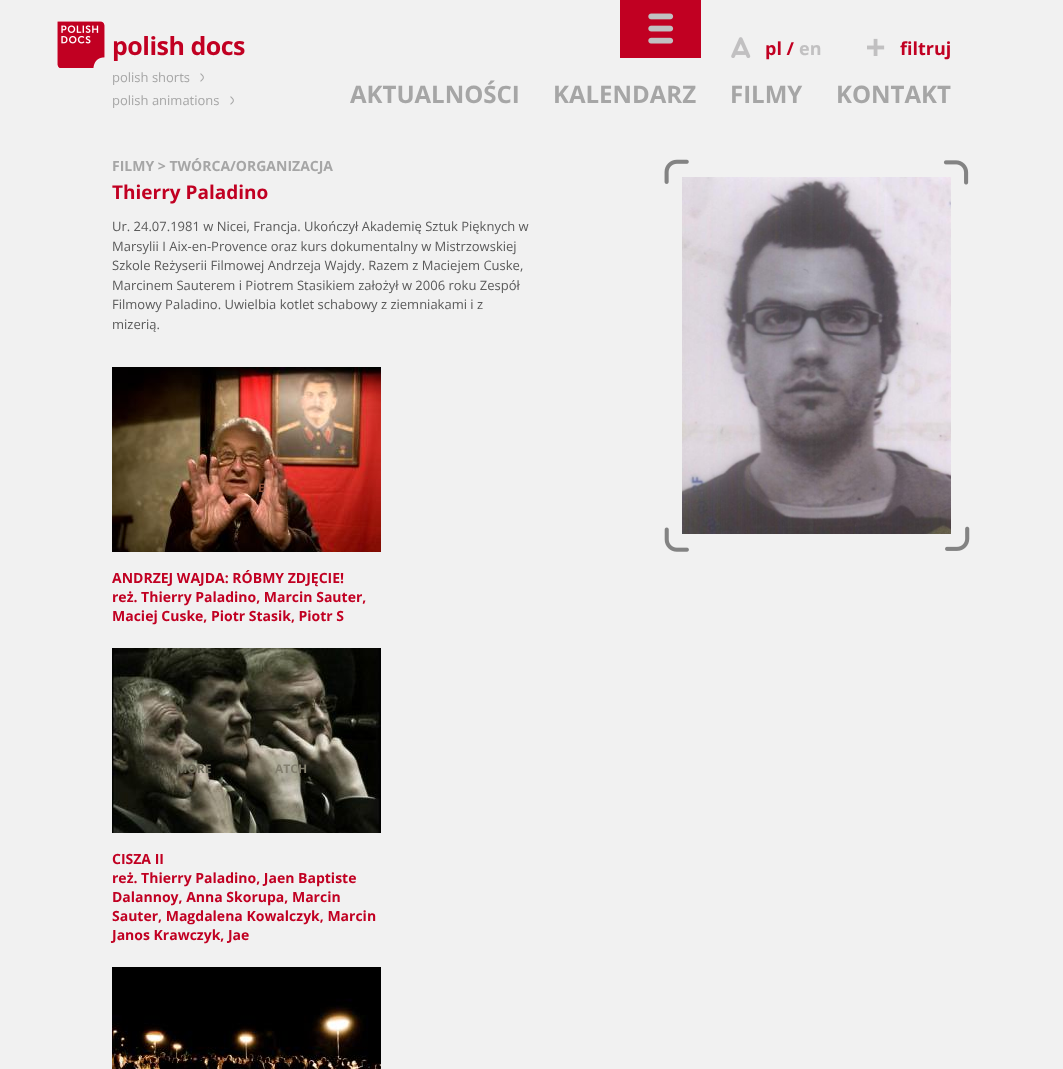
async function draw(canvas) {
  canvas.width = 1063
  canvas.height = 1069
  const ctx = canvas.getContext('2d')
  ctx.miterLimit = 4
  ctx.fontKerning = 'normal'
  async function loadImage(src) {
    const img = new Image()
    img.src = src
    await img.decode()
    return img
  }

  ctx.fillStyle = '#f1f1f1'
  ctx.fillRect(0, 0, 1063, 1069)
  ctx.drawImage(await loadImage('image0.png'), 57, 21, 48, 47)
  ctx.letterSpacing = '-0.5px'
  ctx.font = 'bold 25px Open Sans'
  ctx.fillStyle = '#c10022'
  ctx.fillText('polish docs', 112, 55)
  ctx.fillRect(620, 0, 81, 58)
  ctx.drawImage(await loadImage('image1.png'), 648, 13, 26, 31)
  ctx.drawImage(await loadImage('image2.png'), 731, 37, 20, 21)
  ctx.letterSpacing = '0px'
  ctx.font = 'bold 18px Open Sans'
  ctx.fillText('pl /', 765, 55)
  ctx.fillStyle = '#c1c0c1'
  ctx.fillText('en', 799, 55)
  ctx.drawImage(await loadImage('image3.png'), 867, 38, 18, 18)
  ctx.fillStyle = '#c10022'
  ctx.fillText('filtruj', 900, 55)
  ctx.font = '13px Open Sans'
  ctx.fillStyle = '#a6a6a6'
  ctx.fillText('polish shorts', 112, 82)
  ctx.drawImage(await loadImage('image4.png'), 200, 73, 4, 9)
  ctx.fillText('polish animations', 112, 105)
  ctx.drawImage(await loadImage('image4.png'), 230, 96, 4, 9)
  ctx.font = 'bold 24px Open Sans'
  ctx.fillText('AKTUALNOŚCI', 350, 103)
  ctx.fillText('KALENDARZ', 553, 103)
  ctx.fillText('FILMY', 730, 103)
  ctx.fillText('KONTAKT', 836, 103)
  ctx.font = 'bold 14px Open Sans'
  ctx.fillText('FILMY > TWÓRCA/ORGANIZACJA', 112, 171)
  ctx.font = 'bold 19px Open Sans'
  ctx.fillStyle = '#c10022'
  ctx.fillText('Thierry Paladino', 112, 199)
  ctx.font = '13px Open Sans'
  ctx.fillStyle = '#5a5a5a'
  ctx.fillText('Ur. 24.07.1981 w Nicei, Francja. Ukończył Akademię Sztuk Pięknych w', 112, 231)
  ctx.fillText('Marsylii I Aix-en-Provence oraz kurs dokumentalny w Mistrzowskiej', 112, 251)
  ctx.fillText('Szkole Reżyserii Filmowej Andrzeja Wajdy. Razem z Maciejem Cuske,', 112, 270)
  ctx.fillText('Marcinem Sauterem i Piotrem Stasikiem założył w 2006 roku Zespół', 112, 290)
  ctx.fillText('Filmowy Paladino. Uwielbia kotlet schabowy z ziemniakami i z', 112, 309)
  ctx.fillText('mizerią.', 112, 329)
  ctx.drawImage(await loadImage('image5.png'), 112, 367, 269, 185)
  ctx.font = 'bold 12px Open Sans'
  ctx.fillStyle = '#894d35'
  ctx.fillText('E', 258, 492)
  ctx.font = 'bold 14px Open Sans'
  ctx.fillStyle = '#c10022'
  ctx.fillText('ANDRZEJ WAJDA: RÓBMY ZDJĘCIE!', 112, 583)
  ctx.fillText('reż. Thierry Paladino, Marcin Sauter,', 112, 602)
  ctx.fillText('Maciej Cuske, Piotr Stasik, Piotr S', 112, 621)
  ctx.drawImage(await loadImage('image6.png'), 112, 648, 269, 185)
  ctx.font = 'bold 12px Open Sans'
  ctx.fillStyle = '#6d6a5b'
  ctx.fillText('MORE', 176, 773)
  ctx.fillStyle = '#837f6f'
  ctx.fillText('ATCH', 275, 773)
  ctx.font = 'bold 14px Open Sans'
  ctx.fillStyle = '#c10022'
  ctx.fillText('CISZA II', 112, 864)
  ctx.fillText('reż. Thierry Paladino, Jaen Baptiste', 112, 883)
  ctx.fillText('Dalannoy, Anna Skorupa, Marcin', 112, 902)
  ctx.fillText('Sauter, Magdalena Kowalczyk, Marcin', 112, 921)
  ctx.fillText('Janos Krawczyk, Jae', 112, 940)
  ctx.drawImage(await loadImage('image7.png'), 112, 967, 269, 102)
  ctx.drawImage(await loadImage('image12.png'), 682, 177, 269, 357)
  ctx.drawImage(await loadImage('image8.png'), 664, 159, 25, 25)
  ctx.drawImage(await loadImage('image9.png'), 943, 160, 26, 25)
  ctx.drawImage(await loadImage('image10.png'), 664, 527, 25, 25)
  ctx.drawImage(await loadImage('image11.png'), 945, 526, 25, 25)
}

draw(document.querySelector('canvas'))
